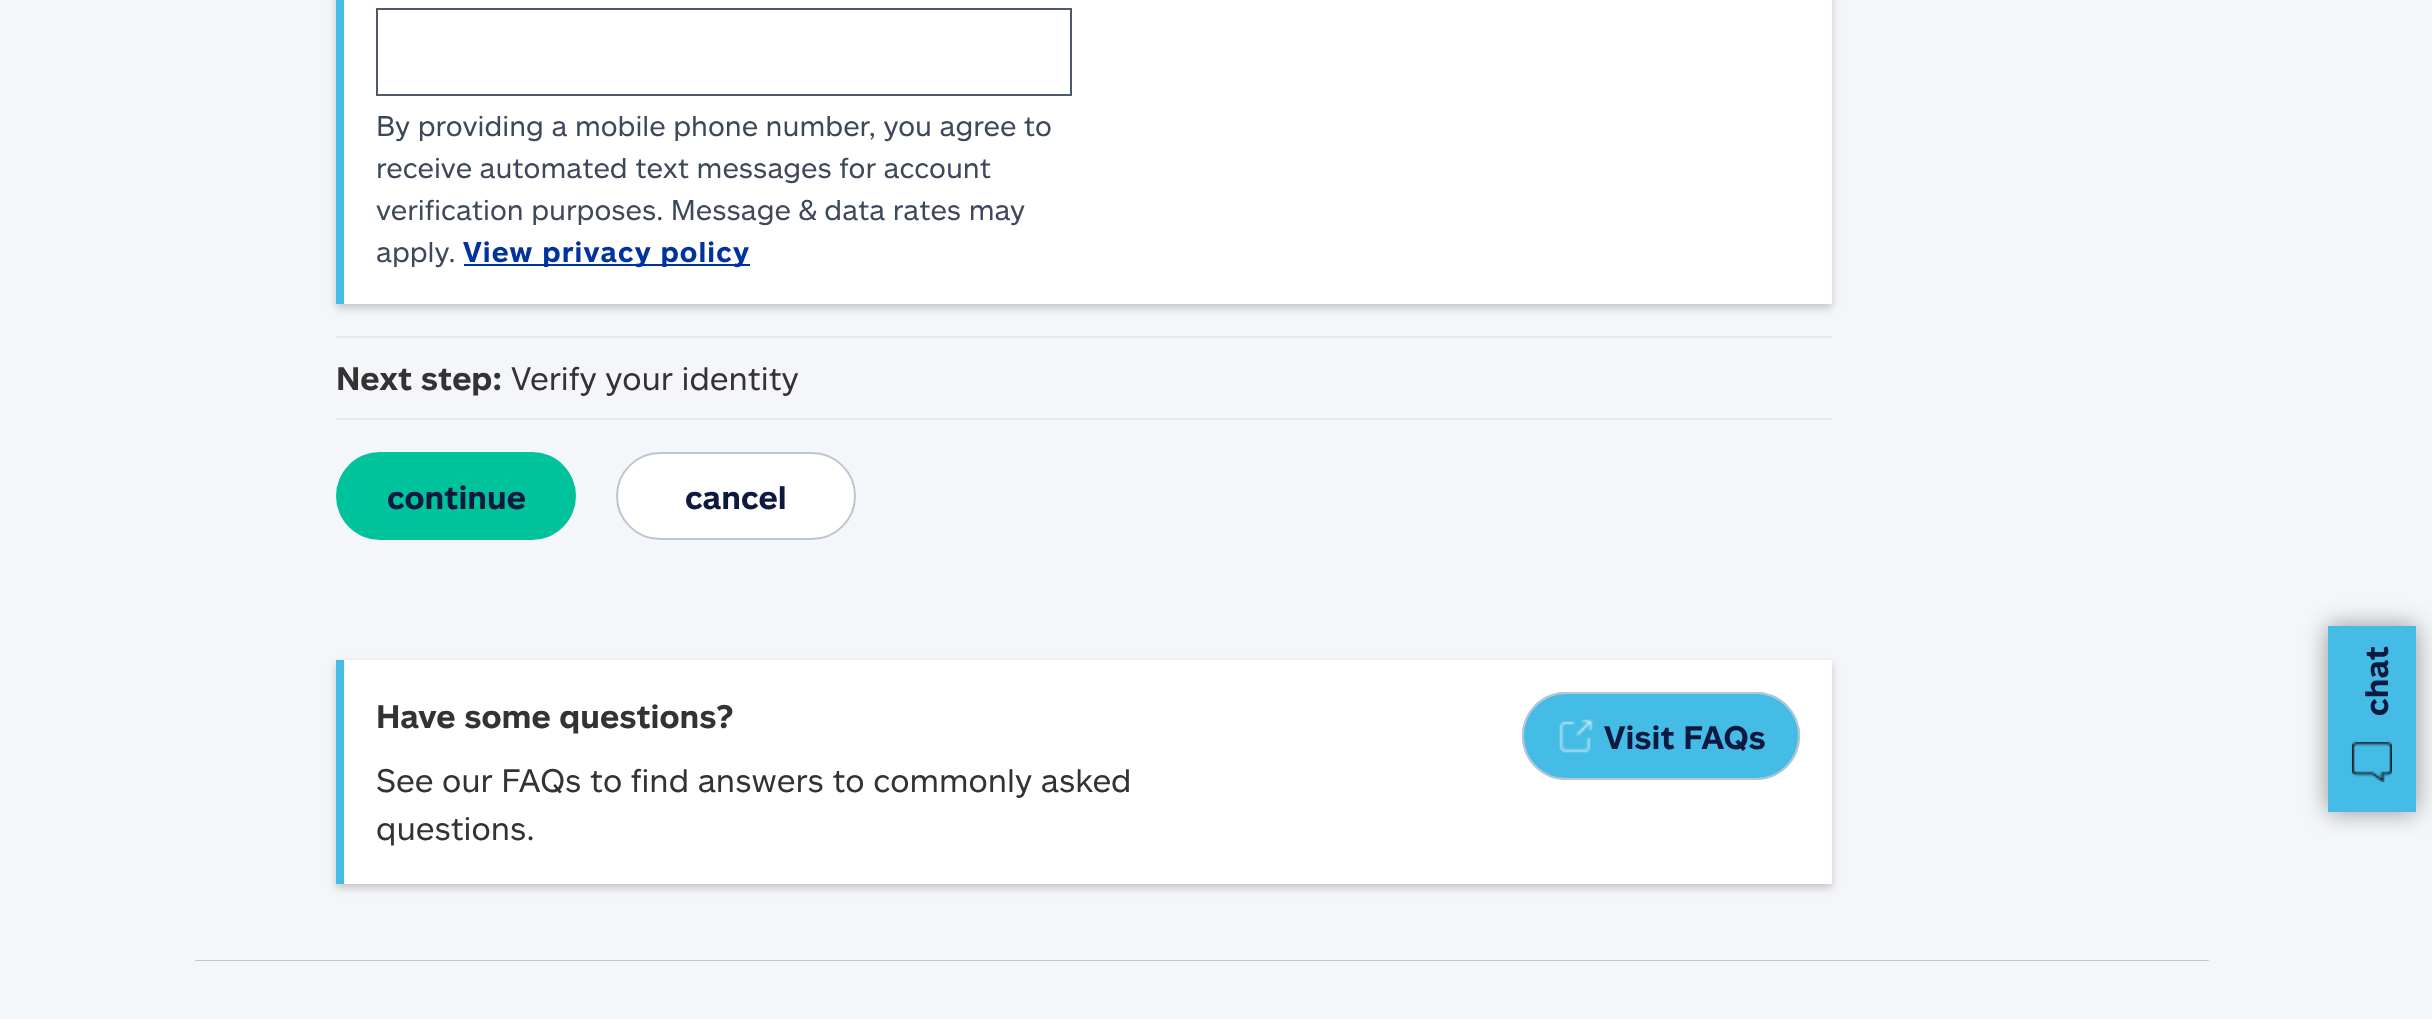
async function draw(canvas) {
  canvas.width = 2432
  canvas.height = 1019
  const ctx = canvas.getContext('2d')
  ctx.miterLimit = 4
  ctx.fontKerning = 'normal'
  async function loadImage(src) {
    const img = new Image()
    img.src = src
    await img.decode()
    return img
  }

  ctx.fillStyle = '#f4f6f9'
  ctx.fillRect(0, 0, 2432, 1019)
  ctx.fillStyle = '#00000033'
  ctx.filter = 'blur(4px)'
  ctx.beginPath()
  ctx.rect(336, -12, 1496, 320)
  ctx.fill()
  ctx.filter = 'none'
  ctx.fillStyle = '#fff'
  ctx.fillRect(344, 0, 1488, 304)
  ctx.fillStyle = '#45bce5'
  ctx.fillRect(336, 0, 8, 304)
  ctx.strokeStyle = '#4e5969'
  ctx.lineWidth = 2
  ctx.strokeRect(377, 9, 694, 86)
  ctx.font = '28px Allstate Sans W'
  ctx.fillStyle = '#3d495b'
  ctx.fillText('By providing a mobile phone number, you agree to', 376, 136)
  ctx.fillText('receive automated text messages for account', 376, 178)
  ctx.fillText('verification purposes. Message & data rates may', 376, 220)
  ctx.fillText('apply.', 376, 262)
  ctx.fillStyle = '#0033a0'
  ctx.fillRect(464, 264, 286, 2)
  ctx.letterSpacing = '1.1px'
  ctx.font = 'bold 28px Allstate Sans W'
  ctx.fillText('View privacy policy', 463, 262)
  ctx.fillStyle = '#e3e9ed'
  ctx.fillRect(336, 336, 1496, 2)
  ctx.fillRect(336, 418, 1496, 2)
  ctx.letterSpacing = '0px'
  ctx.font = 'bold 32px Allstate Sans W'
  ctx.fillStyle = '#333'
  ctx.fillText('Next step:', 336, 390)
  ctx.font = '32px Allstate Sans W'
  ctx.fillText('Verify your identity', 511, 390)
  ctx.fillStyle = '#00c39c'
  ctx.beginPath()
  ctx.roundRect(336, 452, 240, 88, 44)
  ctx.fill()
  ctx.font = 'bold 32px Allstate Sans W'
  ctx.fillStyle = '#0e1941'
  ctx.fillText('continue', 387, 509)
  ctx.fillStyle = '#fff'
  ctx.beginPath()
  ctx.roundRect(617, 453, 238, 86, 43)
  ctx.fill()
  ctx.strokeStyle = '#b9c6d3'
  ctx.stroke()
  ctx.fillStyle = '#0e1941'
  ctx.fillText('cancel', 685, 509)
  ctx.fillStyle = '#00000033'
  ctx.filter = 'blur(4px)'
  ctx.beginPath()
  ctx.rect(336, 664, 1496, 224)
  ctx.fill()
  ctx.filter = 'none'
  ctx.fillStyle = '#fff'
  ctx.fillRect(344, 660, 1488, 224)
  ctx.fillStyle = '#45bce5'
  ctx.fillRect(336, 660, 8, 224)
  ctx.fillStyle = '#333'
  ctx.fillText('Have some questions?', 376, 728)
  ctx.font = '32px Allstate Sans W'
  ctx.fillText('See our FAQs to find answers to commonly asked', 376, 792)
  ctx.fillText('questions.', 376, 840)
  ctx.fillStyle = '#45bce5'
  ctx.beginPath()
  ctx.roundRect(1522, 692, 278, 88, 44)
  ctx.fill()
  ctx.drawImage(await loadImage('image0.png'), 1559, 719, 34, 34)
  ctx.beginPath()
  ctx.roundRect(1523, 693, 276, 86, 43)
  ctx.stroke()
  ctx.font = 'bold 32px Allstate Sans W'
  ctx.fillStyle = '#0e1941'
  ctx.fillText('Visit FAQs', 1604, 749)
  ctx.fillStyle = '#00000066'
  ctx.filter = 'blur(12px)'
  ctx.beginPath()
  ctx.rect(2328, 626, 88, 186)
  ctx.fill()
  ctx.filter = 'none'
  ctx.fillStyle = '#45bce5'
  ctx.fillRect(2328, 626, 88, 186)
  ctx.fillStyle = '#0e1941'
  ctx.save()
  ctx.translate(2388, 716)
  ctx.rotate(-90 * Math.PI / 180)
  ctx.fillText('chat', 0, 0)
  ctx.restore()
  ctx.drawImage(await loadImage('image1.png'), 2351, 741, 41, 41)
  ctx.save()
  ctx.beginPath()
  ctx.rect(32, 960, 2368, 10)
  ctx.clip()
  ctx.beginPath()
  ctx.moveTo(196, 960)
  ctx.lineTo(2208, 960)
  ctx.lineCap = 'round'
  ctx.stroke()
  ctx.restore()
}

draw(document.querySelector('canvas'))
